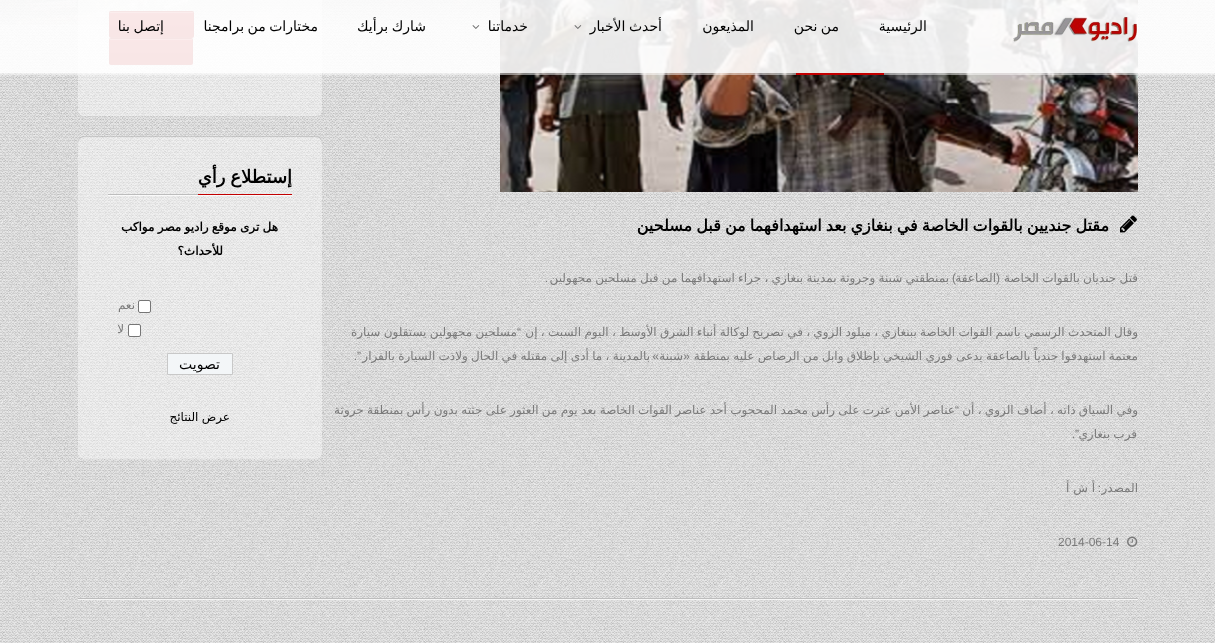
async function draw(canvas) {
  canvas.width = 1215
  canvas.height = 643
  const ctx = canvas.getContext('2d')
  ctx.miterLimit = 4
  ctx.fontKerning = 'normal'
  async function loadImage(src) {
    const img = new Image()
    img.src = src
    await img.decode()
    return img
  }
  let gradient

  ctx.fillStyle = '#fff'
  ctx.fillRect(0, 0, 1215, 643)
  ctx.drawImage(await loadImage('image0.png'), 0, 0, 1215, 643)
  ctx.fillStyle = '#dddddd8c'
  ctx.beginPath()
  ctx.roundRect(1210, 190, 5, 392, 2)
  ctx.fill()
  ctx.drawImage(await loadImage('image1.png'), 0, 0, 1215, 25)
  ctx.drawImage(await loadImage('image5.png'), 500, 0, 638, 192)
  ctx.fillStyle = '#ffffff0a'
  ctx.beginPath()
  ctx.moveTo(78, 110)
  ctx.bezierCurveTo(78, 114, 80, 117, 84, 117)
  ctx.lineTo(317, 117)
  ctx.bezierCurveTo(321, 116, 322, 113, 322, 110)
  ctx.bezierCurveTo(322, 113, 319, 116, 316, 116)
  ctx.lineTo(84, 116)
  ctx.bezierCurveTo(81, 116, 78, 113, 78, 110)
  ctx.closePath()
  ctx.fill()
  ctx.fillStyle = '#ffffff66'
  ctx.beginPath()
  ctx.roundRect(78, -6, 244, 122, 6)
  ctx.fill()
  ctx.fillStyle = '#ffffff80'
  ctx.fillRect(0, 73, 1215, 2)
  ctx.fillStyle = '#c20001'
  ctx.beginPath()
  ctx.roundRect(109, 11, 85, 27, 2)
  ctx.fill()
  gradient = ctx.createLinearGradient(110, 12, 110, -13)
  gradient.addColorStop(0, '#00000014')
  gradient.addColorStop(0.5, '#80808014')
  gradient.addColorStop(1, '#ffffff14')
  ctx.fillStyle = gradient
  ctx.fillRect(109, 11, 85, 1)
  gradient = ctx.createLinearGradient(110, 37, 110, 12)
  gradient.addColorStop(0, '#00000014')
  gradient.addColorStop(0.5, '#80808014')
  gradient.addColorStop(1, '#ffffff14')
  ctx.fillStyle = gradient
  ctx.fillRect(109, 12, 85, 25)
  gradient = ctx.createLinearGradient(110, 62, 110, 37)
  gradient.addColorStop(0, '#00000014')
  gradient.addColorStop(0.5, '#80808014')
  gradient.addColorStop(1, '#ffffff14')
  ctx.fillStyle = gradient
  ctx.fillRect(109, 37, 85, 1)
  ctx.beginPath()
  ctx.roundRect(109.5, 11.5, 84, 26, 1.5)
  ctx.strokeStyle = '#0000001a'
  ctx.stroke()
  ctx.fillStyle = '#ffffff3d'
  ctx.fillRect(110, 12, 83, 1)
  ctx.fillStyle = '#c20001'
  ctx.beginPath()
  ctx.roundRect(109, 38, 84, 27, 2)
  ctx.fill()
  gradient = ctx.createLinearGradient(110, 39, 110, 14)
  gradient.addColorStop(0, '#00000014')
  gradient.addColorStop(0.5, '#80808014')
  gradient.addColorStop(1, '#ffffff14')
  ctx.fillStyle = gradient
  ctx.fillRect(109, 38, 84, 1)
  gradient = ctx.createLinearGradient(110, 64, 110, 39)
  gradient.addColorStop(0, '#00000014')
  gradient.addColorStop(0.5, '#80808014')
  gradient.addColorStop(1, '#ffffff14')
  ctx.fillStyle = gradient
  ctx.fillRect(109, 39, 84, 25)
  gradient = ctx.createLinearGradient(110, 89, 110, 64)
  gradient.addColorStop(0, '#00000014')
  gradient.addColorStop(0.5, '#80808014')
  gradient.addColorStop(1, '#ffffff14')
  ctx.fillStyle = gradient
  ctx.fillRect(109, 64, 84, 1)
  ctx.beginPath()
  ctx.roundRect(109.5, 38.5, 83, 26, 1.5)
  ctx.stroke()
  ctx.fillStyle = '#ffffff3d'
  ctx.fillRect(110, 39, 82, 1)
  ctx.fillStyle = '#ffffffe6'
  ctx.fillRect(0, 0, 1215, 73)
  ctx.drawImage(await loadImage('image2.png'), 1013, 17, 124, 25)
  ctx.direction = 'rtl'
  ctx.font = '14px DejaVu Sans'
  ctx.fillStyle = '#000'
  ctx.fillText('الرئيسية', 927, 31)
  ctx.wordSpacing = '-1px'
  ctx.fillText('من نحن', 839, 31)
  ctx.wordSpacing = '0px'
  ctx.fillText('المذيعون', 754, 31)
  ctx.wordSpacing = '-1px'
  ctx.fillText('أحدث الأخبار', 662, 31)
  ctx.drawImage(await loadImage('image3.png'), 574, 25, 8, 4)
  ctx.wordSpacing = '0px'
  ctx.fillText('خدماتنا', 528, 31)
  ctx.drawImage(await loadImage('image4.png'), 472, 25, 8, 4)
  ctx.wordSpacing = '-1px'
  ctx.fillText('شارك برأيك', 426, 31)
  ctx.fillText('مختارات من برامجنا', 318, 31)
  ctx.fillText('إتصل بنا', 164, 31)
  ctx.fillStyle = '#c20001'
  ctx.fillRect(796, 73, 88, 2)
  ctx.fillStyle = '#ffffffbf'
  ctx.fillRect(78, 599, 1060, 1)
  ctx.fillStyle = '#bdbdbd'
  ctx.fillRect(78, 598, 1060, 1)
  ctx.drawImage(await loadImage('image6.png'), 1120, 215, 17, 18)
  ctx.font = 'bold 16px DejaVu Sans'
  ctx.fillStyle = '#000'
  ctx.fillText('مقتل جنديين بالقوات الخاصة في بنغازي بعد استهدافهما من قبل مسلحين', 1109, 231)
  ctx.wordSpacing = '-0.5px'
  ctx.font = '12px DejaVu Sans'
  ctx.fillStyle = '#7a7a7a'
  ctx.fillText('قتل جنديان بالقوات الخاصة', 1138, 282)
  ctx.wordSpacing = '0px'
  ctx.fillText('الصاعقة', 996, 282)
  ctx.wordSpacing = '-0.5px'
  ctx.fillText('بمنطقتي شبنة وجروثة بمدينة بنغازي ، جراء استهدافهما من قبل مسلحين مجهولين', 949, 282)
  ctx.wordSpacing = '0px'
  ctx.font = '12px Liberation Sans'
  ctx.fillText('(', 1000, 282)
  ctx.fillText(')', 956, 282)
  ctx.fillText('.', 548, 282)
  ctx.wordSpacing = '-0.5px'
  ctx.font = '12px DejaVu Sans'
  ctx.fillText('وقال المتحدث الرسمي باسم القوات الخاصة ببنغازي ، ميلود الزوي ، في تصريح لوكالة أنباء الشرق الأوسط ، اليوم السبت ، إن', 1138, 336)
  ctx.fillText('مسلحين مجهولين يستقلون سيارة', 517, 336)
  ctx.wordSpacing = '0px'
  ctx.font = '12px Liberation Sans'
  ctx.fillText('“', 521, 336)
  ctx.wordSpacing = '-0.5px'
  ctx.font = '12px DejaVu Sans'
  ctx.fillText('معتمة استهدفوا جندياً بالصاعقة يدعى فوزي الشيخي بإطلاق وابل من الرصاص عليه بمنطقة', 1138, 360)
  ctx.wordSpacing = '0px'
  ctx.font = '12px Liberation Sans'
  ctx.fillText('«', 690, 360)
  ctx.font = '12px DejaVu Sans'
  ctx.fillText('شبنة', 683, 360)
  ctx.font = '12px Liberation Sans'
  ctx.fillText('”.', 361, 360)
  ctx.wordSpacing = '-0.5px'
  ctx.font = '12px DejaVu Sans'
  ctx.fillText('بالمدينة ، ما أدى إلى مقتله في الحال ولاذت السيارة بالفرار', 650, 360)
  ctx.wordSpacing = '0px'
  ctx.font = '12px Liberation Sans'
  ctx.fillText('»', 659, 360)
  ctx.wordSpacing = '-0.5px'
  ctx.font = '12px DejaVu Sans'
  ctx.fillText('وفي السياق ذاته ، أضاف الزوي ، أن', 1138, 414)
  ctx.fillText('عناصر الأمن عثرت على رأس محمد المحجوب أحد عناصر القوات الخاصة بعد يوم من العثور على جثته بدون رأس بمنطقة جروثة', 955, 414)
  ctx.wordSpacing = '0px'
  ctx.font = '12px Liberation Sans'
  ctx.fillText('“', 959, 414)
  ctx.wordSpacing = '-0.5px'
  ctx.font = '12px DejaVu Sans'
  ctx.fillText('قرب بنغازي', 1137, 438)
  ctx.wordSpacing = '0px'
  ctx.font = '12px Liberation Sans'
  ctx.fillText('”.', 1079, 438)
  ctx.font = '12px DejaVu Sans'
  ctx.fillText('المصدر', 1138, 492)
  ctx.font = '12px Liberation Sans'
  ctx.fillText(':', 1101, 492)
  ctx.font = '12px DejaVu Sans'
  ctx.fillText('أ ش أ', 1095, 492)
  ctx.drawImage(await loadImage('image7.png'), 1127, 536, 11, 11)
  ctx.direction = 'ltr'
  ctx.font = '12px Liberation Sans'
  ctx.fillText('2014-06-14', 1058, 546)
  ctx.fillStyle = '#ffffff0a'
  ctx.beginPath()
  ctx.moveTo(78, 453)
  ctx.bezierCurveTo(78, 457, 80, 460, 84, 460)
  ctx.lineTo(317, 460)
  ctx.bezierCurveTo(321, 459, 322, 456, 322, 453)
  ctx.bezierCurveTo(322, 456, 319, 459, 316, 459)
  ctx.lineTo(84, 459)
  ctx.bezierCurveTo(81, 459, 78, 456, 78, 453)
  ctx.closePath()
  ctx.fill()
  ctx.fillStyle = '#ffffff66'
  ctx.beginPath()
  ctx.roundRect(78, 136, 244, 323, 6)
  ctx.fill()
  ctx.fillStyle = '#00000026'
  ctx.beginPath()
  ctx.moveTo(84, 137)
  ctx.lineTo(316, 137)
  ctx.bezierCurveTo(319, 137, 322, 140, 322, 143)
  ctx.bezierCurveTo(322, 139, 320, 136, 316, 136)
  ctx.lineTo(83, 136)
  ctx.bezierCurveTo(79, 137, 78, 140, 78, 143)
  ctx.bezierCurveTo(78, 140, 81, 137, 84, 137)
  ctx.closePath()
  ctx.fill()
  ctx.fillStyle = '#c20001'
  ctx.fillRect(198, 194, 94, 1)
  ctx.wordSpacing = '-1px'
  ctx.direction = 'rtl'
  ctx.font = 'bold 18px DejaVu Sans'
  ctx.fillStyle = '#000'
  ctx.fillText('إستطلاع رأي', 292, 183)
  ctx.fillStyle = '#ffffffbf'
  ctx.fillRect(108, 195, 184, 1)
  ctx.fillStyle = '#bdbdbd'
  ctx.fillRect(108, 194, 90, 1)
  ctx.wordSpacing = '-0.5px'
  ctx.font = 'bold 12px DejaVu Sans'
  ctx.fillStyle = '#000'
  ctx.fillText('هل ترى موقع راديو مصر مواكب', 278, 231)
  ctx.wordSpacing = '0px'
  ctx.fillText('للأحداث؟', 223, 255)
  ctx.fillStyle = '#fff'
  ctx.beginPath()
  ctx.roundRect(138.5, 300.5, 12, 12, 1.5)
  ctx.fill()
  ctx.strokeStyle = '#767676'
  ctx.stroke()
  ctx.font = '12px DejaVu Sans'
  ctx.fillStyle = '#7a7a7a'
  ctx.fillText('نعم', 135, 309)
  ctx.fillStyle = '#fff'
  ctx.beginPath()
  ctx.roundRect(128.5, 324.5, 12, 12, 1.5)
  ctx.fill()
  ctx.stroke()
  ctx.fillStyle = '#7a7a7a'
  ctx.fillText('لا', 124, 333)
  ctx.fillStyle = '#f3f6f8'
  ctx.beginPath()
  ctx.rect(167.5, 353.5, 65, 21)
  ctx.fill()
  ctx.strokeStyle = '#c8c8c8'
  ctx.stroke()
  ctx.font = '14px DejaVu Sans'
  ctx.fillStyle = '#000'
  ctx.fillText('تصويت', 220, 369)
  ctx.wordSpacing = '-0.5px'
  ctx.font = '12px DejaVu Sans'
  ctx.fillText('عرض النتائج', 230, 421)
}

draw(document.querySelector('canvas'))
